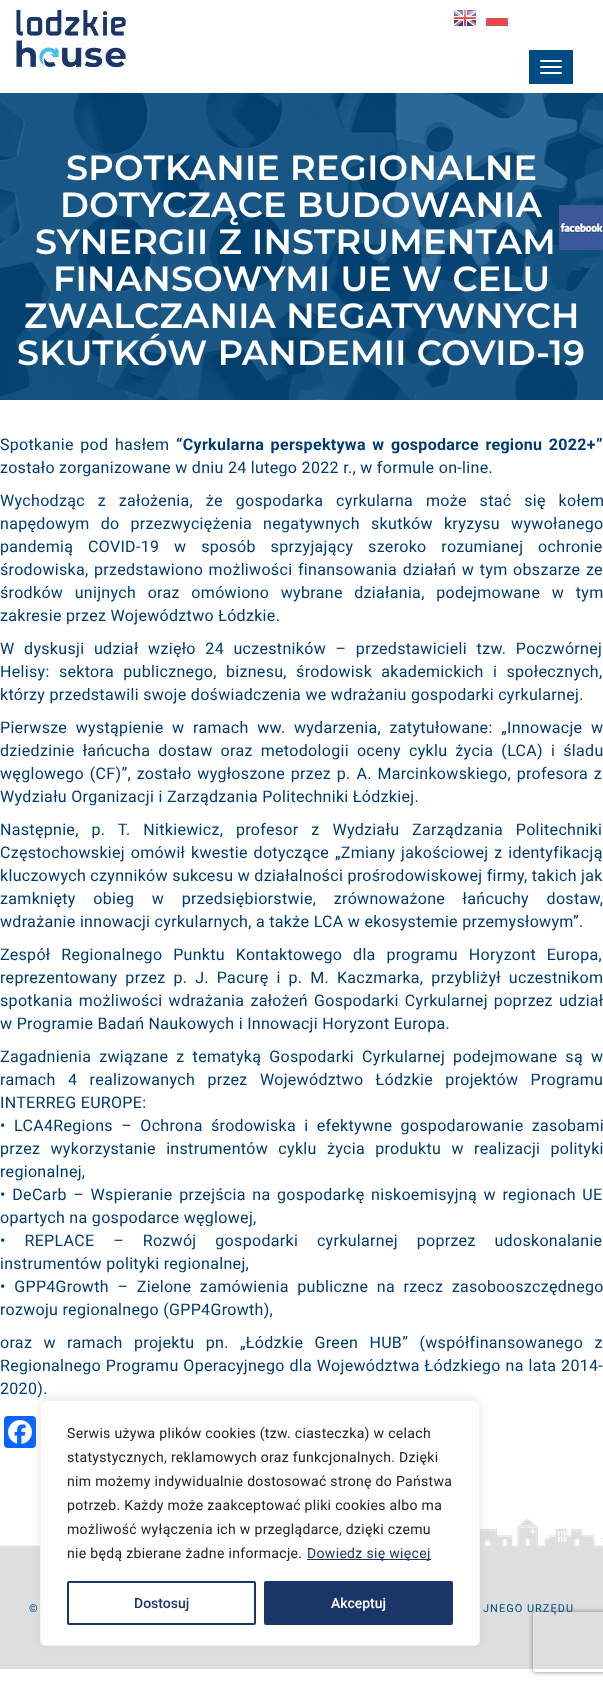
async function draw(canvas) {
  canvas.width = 603
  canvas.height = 1686
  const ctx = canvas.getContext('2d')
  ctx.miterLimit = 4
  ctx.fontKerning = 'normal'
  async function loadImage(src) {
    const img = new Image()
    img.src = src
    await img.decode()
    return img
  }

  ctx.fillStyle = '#fff'
  ctx.fillRect(0, 0, 603, 1686)
  ctx.drawImage(await loadImage('image0.png'), 15, 9, 112, 59)
  ctx.fillStyle = '#004b84'
  ctx.fillRect(529, 50, 44, 34)
  ctx.fillStyle = '#fff'
  ctx.beginPath()
  ctx.roundRect(540, 60, 22, 2, 1)
  ctx.fill()
  ctx.beginPath()
  ctx.roundRect(540, 66, 22, 2, 1)
  ctx.fill()
  ctx.beginPath()
  ctx.roundRect(540, 72, 22, 2, 1)
  ctx.fill()
  ctx.drawImage(await loadImage('image1.png'), 454, 10, 22, 16)
  ctx.drawImage(await loadImage('image2.png'), 486, 16, 22, 10)
  ctx.drawImage(await loadImage('image3.png'), 0, 93, 603, 307)
  ctx.letterSpacing = '0.32px'
  ctx.font = '600 35px Montserrat'
  ctx.fillText('SPOTKANIE REGIONALNE', 66, 180)
  ctx.fillText('DOTYCZĄCE BUDOWANIA', 60, 217)
  ctx.fillText('SYNERGII Z INSTRUMENTAM', 35, 254)
  ctx.fillText('FINANSOWYMI UE W CELU', 53, 291)
  ctx.fillText('ZWALCZANIA NEGATYWNYCH', 24, 328)
  ctx.fillText('SKUTKÓW PANDEMII COVID-19', 17, 365)
  ctx.drawImage(await loadImage('image4.png'), 559, 205, 44, 45)
  ctx.wordSpacing = '2.25px'
  ctx.font = '16px Roboto'
  ctx.fillStyle = '#003a72'
  ctx.fillText('Spotkanie pod hasłem', 0, 450)
  ctx.font = 'bold 16px Roboto'
  ctx.fillText('“Cyrkularna perspektywa w gospodarce regionu 2022+”', 176, 450)
  ctx.wordSpacing = '0px'
  ctx.font = '16px Roboto'
  ctx.fillText('zostało zorganizowane w dniu 24 lutego 2022 r., w formule on-line.', 0, 473)
  ctx.wordSpacing = '8.5px'
  ctx.fillText('Wychodząc z założenia, że gospodarka cyrkularna może stać się kołem', 0, 506)
  ctx.wordSpacing = '6.75px'
  ctx.fillText('napędowym do przezwyciężenia negatywnych skutków kryzysu wywołanego', 0, 529)
  ctx.wordSpacing = '10.5px'
  ctx.fillText('pandemią COVID-19 w sposób sprzyjający szeroko rozumianej ochronie', 0, 552)
  ctx.wordSpacing = '1.25px'
  ctx.fillText('środowiska, przedstawiono możliwości finansowania działań w tym obszarze ze', 0, 575)
  ctx.wordSpacing = '7.25px'
  ctx.fillText('środków unijnych oraz omówiono wybrane działania, podejmowane w tym', 0, 598)
  ctx.wordSpacing = '0px'
  ctx.fillText('zakresie przez Województwo Łódzkie.', 0, 621)
  ctx.wordSpacing = '5.25px'
  ctx.fillText('W dyskusji udział wzięło 24 uczestników – przedstawicieli tzw. Poczwórnej', 0, 654)
  ctx.wordSpacing = '5px'
  ctx.fillText('Helisy: sektora publicznego, biznesu, środowisk akademickich i społecznych,', 0, 677)
  ctx.wordSpacing = '0px'
  ctx.fillText('którzy przedstawili swoje doświadczenia we wdrażaniu gospodarki cyrkularnej.', 0, 700)
  ctx.wordSpacing = '4.25px'
  ctx.fillText('Pierwsze wystąpienie w ramach ww. wydarzenia, zatytułowane: „Innowacje w', 0, 733)
  ctx.wordSpacing = '3.75px'
  ctx.fillText('dziedzinie łańcucha dostaw oraz metodologii oceny cyklu życia (LCA) i śladu', 0, 756)
  ctx.wordSpacing = '1.5px'
  ctx.fillText('węglowego (CF)”, zostało wygłoszone przez p. A. Marcinkowskiego, profesora z', 0, 779)
  ctx.wordSpacing = '0px'
  ctx.fillText('Wydziału Organizacji i Zarządzania Politechniki Łódzkiej.', 0, 802)
  ctx.wordSpacing = '8.5px'
  ctx.fillText('Następnie, p. T. Nitkiewicz, profesor z Wydziału Zarządzania Politechniki', 0, 835)
  ctx.wordSpacing = '1.5px'
  ctx.fillText('Częstochowskiej omówił kwestie dotyczące „Zmiany jakościowej z identyfikacją', 0, 858)
  ctx.wordSpacing = '0px'
  ctx.fillText('kluczowych czynników sukcesu w działalności prośrodowiskowej firmy, takich jak', 0, 881)
  ctx.wordSpacing = '13.25px'
  ctx.fillText('zamknięty obieg w przedsiębiorstwie, zrównoważone łańcuchy dostaw,', 0, 904)
  ctx.wordSpacing = '0px'
  ctx.fillText('wdrażanie innowacji cyrkularnych, a także LCA w ekosystemie przemysłowym”.', 0, 927)
  ctx.wordSpacing = '6.5px'
  ctx.fillText('Zespół Regionalnego Punktu Kontaktowego dla programu Horyzont Europa,', 0, 960)
  ctx.wordSpacing = '3.6px'
  ctx.fillText('reprezentowany przez p. J. Pacurę i p. M. Kaczmarka, przybliżył uczestnikom', 0, 983)
  ctx.wordSpacing = '1.75px'
  ctx.fillText('spotkania możliwości wdrażania założeń Gospodarki Cyrkularnej poprzez udział', 0, 1006)
  ctx.wordSpacing = '0px'
  ctx.fillText('w Programie Badań Naukowych i Innowacji Horyzont Europa.', 0, 1029)
  ctx.wordSpacing = '3.75px'
  ctx.fillText('Zagadnienia związane z tematyką Gospodarki Cyrkularnej podejmowane są w', 0, 1062)
  ctx.wordSpacing = '8px'
  ctx.fillText('ramach 4 realizowanych przez Województwo Łódzkie projektów Programu', 0, 1085)
  ctx.wordSpacing = '0px'
  ctx.fillText('INTERREG EUROPE:', 0, 1108)
  ctx.wordSpacing = '4px'
  ctx.fillText('• LCA4Regions – Ochrona środowiska i efektywne gospodarowanie zasobami', 0, 1131)
  ctx.wordSpacing = '6px'
  ctx.fillText('przez wykorzystanie instrumentów cyklu życia produktu w realizacji polityki', 0, 1154)
  ctx.wordSpacing = '0px'
  ctx.fillText('regionalnej,', 0, 1177)
  ctx.wordSpacing = '2.25px'
  ctx.fillText('• DeCarb – Wspieranie przejścia na gospodarkę niskoemisyjną w regionach UE', 0, 1200)
  ctx.wordSpacing = '0px'
  ctx.fillText('opartych na gospodarce węglowej,', 0, 1223)
  ctx.wordSpacing = '14.5px'
  ctx.fillText('• REPLACE – Rozwój gospodarki cyrkularnej poprzez udoskonalanie', 0, 1246)
  ctx.wordSpacing = '0px'
  ctx.fillText('instrumentów polityki regionalnej,', 0, 1269)
  ctx.wordSpacing = '4.25px'
  ctx.fillText('• GPP4Growth – Zielone zamówienia publiczne na rzecz zasobooszczędnego', 0, 1292)
  ctx.wordSpacing = '0px'
  ctx.fillText('rozwoju regionalnego (GPP4Growth),', 0, 1315)
  ctx.wordSpacing = '7px'
  ctx.fillText('oraz w ramach projektu pn. „Łódzkie Green HUB” (współfinansowanego z', 0, 1348)
  ctx.wordSpacing = '0.5px'
  ctx.fillText('Regionalnego Programu Operacyjnego dla Województwa Łódzkiego na lata 2014-', 0, 1371)
  ctx.wordSpacing = '0px'
  ctx.fillText('2020).', 0, 1394)
  ctx.fillStyle = '#0866ff'
  ctx.beginPath()
  ctx.roundRect(4, 1416, 32, 32, 4)
  ctx.fill()
  ctx.drawImage(await loadImage('image5.png'), 8, 1420, 24, 24)
  ctx.drawImage(await loadImage('image6.png'), 0, 1518, 603, 31)
  ctx.fillStyle = '#dddedd'
  ctx.fillRect(0, 1549, 603, 120)
  ctx.fillStyle = '#acabab4d'
  ctx.filter = 'blur(5px)'
  ctx.beginPath()
  ctx.roundRect(40, 1399, 440, 246, 6)
  ctx.fill()
  ctx.filter = 'none'
  ctx.fillStyle = '#fff'
  ctx.beginPath()
  ctx.roundRect(40.5, 1400.5, 439, 245, 5.5)
  ctx.fill()
  ctx.strokeStyle = '#f4f4f4'
  ctx.stroke()
  ctx.font = '14px Roboto'
  ctx.fillStyle = '#212121'
  ctx.fillText('Serwis używa plików cookies (tzw. ciasteczka) w celach', 67, 1438)
  ctx.fillText('statystycznych, reklamowych oraz funkcjonalnych. Dzięki', 67, 1462)
  ctx.fillText('nim możemy indywidualnie dostosować stronę do Państwa', 67, 1486)
  ctx.fillText('potrzeb. Każdy może zaakceptować pliki cookies albo ma', 67, 1510)
  ctx.fillText('możliwość wyłączenia ich w przeglądarce, dzięki czemu', 67, 1534)
  ctx.fillText('nie będą zbierane żadne informacje.', 67, 1558)
  ctx.fillStyle = '#1a3668'
  ctx.fillRect(307, 1559, 124, 1)
  ctx.fillText('Dowiedz się więcej', 307, 1558)
  ctx.beginPath()
  ctx.roundRect(68, 1582, 187, 42, 1)
  ctx.strokeStyle = '#1a3668'
  ctx.lineWidth = 2
  ctx.stroke()
  ctx.letterSpacing = '0px'
  ctx.font = '500 14px Roboto'
  ctx.fillText('Dostosuj', 134, 1608)
  ctx.beginPath()
  ctx.roundRect(265, 1582, 187, 42, 1)
  ctx.fill()
  ctx.stroke()
  ctx.fillStyle = '#fff'
  ctx.fillText('Akceptuj', 331, 1608)
  ctx.save()
  ctx.beginPath()
  ctx.moveTo(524, 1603)
  ctx.lineTo(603, 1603)
  ctx.lineTo(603, 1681)
  ctx.lineTo(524, 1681)
  ctx.closePath()
  ctx.moveTo(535, 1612)
  ctx.lineTo(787, 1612)
  ctx.bezierCurveTo(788, 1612, 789, 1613, 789, 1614)
  ctx.lineTo(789, 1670)
  ctx.bezierCurveTo(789, 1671, 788, 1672, 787, 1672)
  ctx.lineTo(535, 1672)
  ctx.bezierCurveTo(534, 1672, 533, 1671, 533, 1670)
  ctx.lineTo(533, 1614)
  ctx.bezierCurveTo(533, 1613, 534, 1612, 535, 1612)
  ctx.closePath()
  ctx.clip('evenodd')
  ctx.fillStyle = '#808080'
  ctx.filter = 'blur(2.5px)'
  ctx.beginPath()
  ctx.roundRect(533, 1612, 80, 60, 2)
  ctx.fill()
  ctx.filter = 'none'
  ctx.restore()
  ctx.letterSpacing = '1px'
  ctx.font = '11px Roboto'
  ctx.fillStyle = '#004b84'
  ctx.fillText('©', 29, 1612)
  ctx.fillText('JNEGO URZĘDU', 483, 1612)
}

draw(document.querySelector('canvas'))
